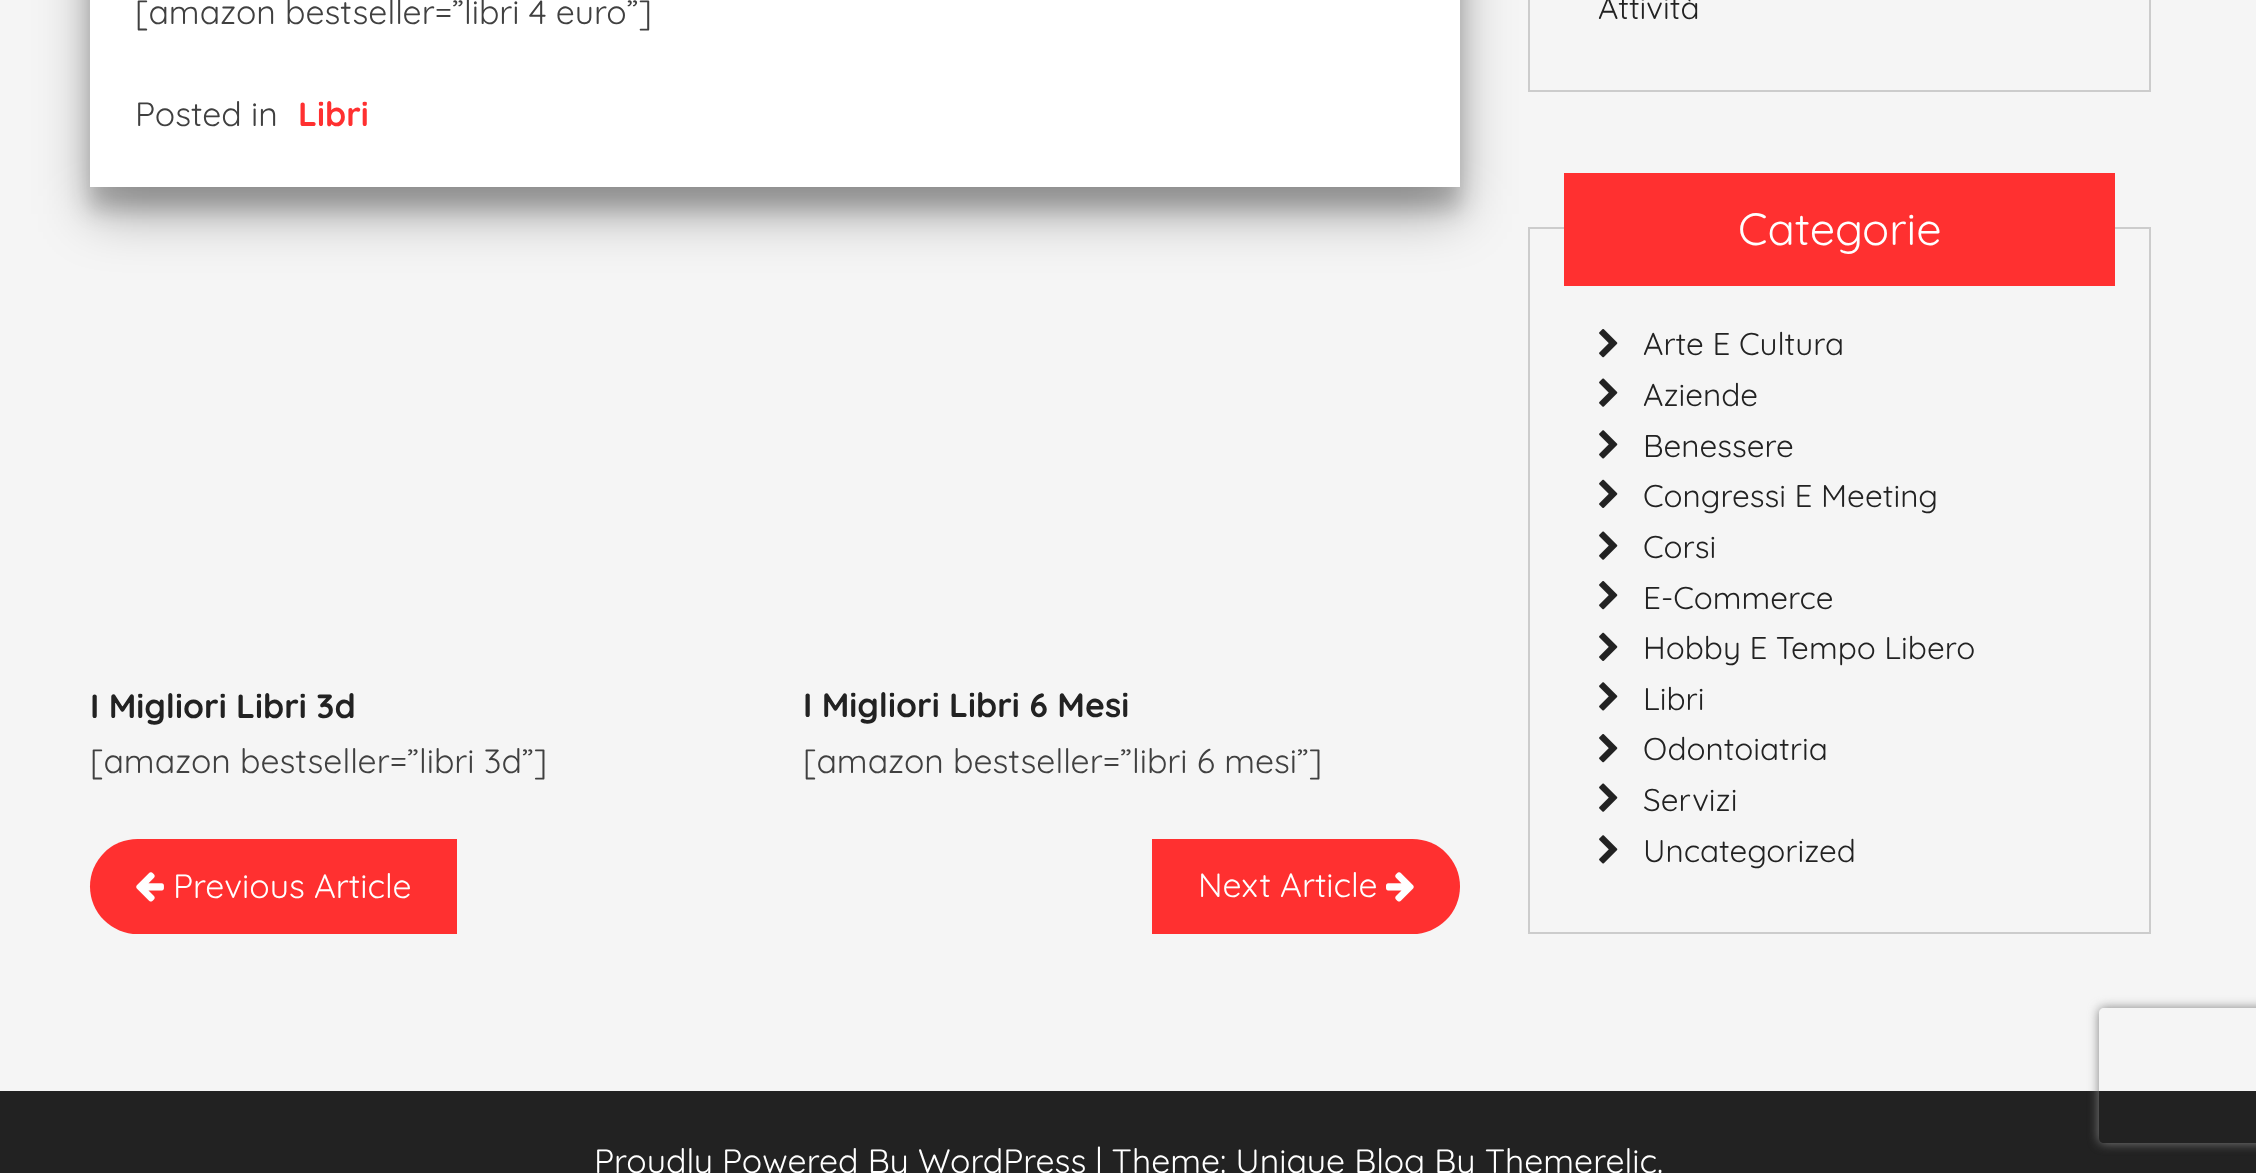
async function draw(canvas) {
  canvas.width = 2256
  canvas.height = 1173
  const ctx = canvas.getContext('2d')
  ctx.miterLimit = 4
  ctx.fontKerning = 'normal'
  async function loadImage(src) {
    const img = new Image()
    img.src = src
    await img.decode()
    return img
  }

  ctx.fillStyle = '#f5f5f5'
  ctx.fillRect(0, 0, 2256, 1173)
  ctx.fillStyle = '#00000033'
  ctx.filter = 'blur(11px)'
  ctx.beginPath()
  ctx.rect(90, -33, 1370, 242)
  ctx.fill()
  ctx.filter = 'none'
  ctx.fillStyle = '#0000004d'
  ctx.filter = 'blur(27px)'
  ctx.beginPath()
  ctx.rect(90, -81, 1370, 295)
  ctx.fill()
  ctx.filter = 'none'
  ctx.fillStyle = '#fff'
  ctx.fillRect(90, 0, 1370, 187)
  ctx.font = '33.75px Quicksand'
  ctx.fillStyle = '#404040'
  ctx.fillText('[amazon bestseller=”libri 4 euro”]', 135, 24)
  ctx.fillText('Posted in', 135, 126)
  ctx.font = 'bold 33.75px Quicksand'
  ctx.fillStyle = '#ff3030'
  ctx.fillText('Libri', 298, 126)
  ctx.fillStyle = '#222'
  ctx.fillText('I Migliori Libri 3d', 90, 718)
  ctx.font = '33.75px Quicksand'
  ctx.fillStyle = '#404040'
  ctx.fillText('[amazon bestseller=”libri 3d”]', 90, 773)
  ctx.fillStyle = '#ff3030'
  ctx.beginPath()
  ctx.roundRect(90, 839, 367, 95, [47.5, 0, 0, 47.5])
  ctx.fill()
  ctx.drawImage(await loadImage('image0.png'), 136, 872, 28, 30)
  ctx.fillStyle = '#fff'
  ctx.fillText('Previous Article', 173, 898)
  ctx.font = 'bold 33.75px Quicksand'
  ctx.fillStyle = '#222'
  ctx.fillText('I Migliori Libri 6 Mesi', 803, 717)
  ctx.font = '33.75px Quicksand'
  ctx.fillStyle = '#404040'
  ctx.fillText('[amazon bestseller=”libri 6 mesi”]', 803, 773)
  ctx.fillStyle = '#ff3030'
  ctx.beginPath()
  ctx.roundRect(1152, 839, 308, 95, [0, 47.5, 47.5, 0])
  ctx.fill()
  ctx.fillStyle = '#fff'
  ctx.fillText('Next Article', 1198, 897)
  ctx.drawImage(await loadImage('image1.png'), 1386, 872, 28, 30)
  ctx.strokeStyle = '#ccc'
  ctx.lineWidth = 2
  ctx.strokeRect(1529, -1, 621, 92)
  ctx.font = '31.5px Quicksand'
  ctx.fillStyle = '#222'
  ctx.fillText('Attività', 1598, 19)
  ctx.strokeRect(1529, 228, 621, 705)
  ctx.fillStyle = '#ff3030'
  ctx.fillRect(1564, 173, 551, 113)
  ctx.font = '45px Quicksand'
  ctx.fillStyle = '#fff'
  ctx.fillText('Categorie', 1738, 245)
  ctx.drawImage(await loadImage('image2.png'), 1599, 329, 19, 29)
  ctx.font = '31.5px Quicksand'
  ctx.fillStyle = '#222'
  ctx.fillText('Arte E Cultura', 1643, 355)
  ctx.drawImage(await loadImage('image3.png'), 1599, 378, 19, 29)
  ctx.fillText('Aziende', 1643, 406)
  ctx.drawImage(await loadImage('image4.png'), 1599, 430, 19, 29)
  ctx.fillText('Benessere', 1643, 457)
  ctx.drawImage(await loadImage('image5.png'), 1599, 479, 19, 29)
  ctx.fillText('Congressi E Meeting', 1643, 507)
  ctx.drawImage(await loadImage('image3.png'), 1599, 531, 19, 29)
  ctx.fillText('Corsi', 1643, 558)
  ctx.drawImage(await loadImage('image2.png'), 1599, 581, 19, 29)
  ctx.fillText('E-Commerce', 1643, 609)
  ctx.drawImage(await loadImage('image5.png'), 1599, 632, 19, 29)
  ctx.fillText('Hobby E Tempo Libero', 1643, 659)
  ctx.drawImage(await loadImage('image4.png'), 1599, 682, 19, 29)
  ctx.fillText('Libri', 1643, 710)
  ctx.drawImage(await loadImage('image2.png'), 1599, 734, 19, 29)
  ctx.fillText('Odontoiatria', 1643, 760)
  ctx.drawImage(await loadImage('image3.png'), 1599, 783, 19, 29)
  ctx.fillText('Servizi', 1643, 811)
  ctx.drawImage(await loadImage('image4.png'), 1599, 835, 19, 29)
  ctx.fillText('Uncategorized', 1643, 862)
  ctx.fillRect(0, 1091, 2256, 82)
  ctx.font = '33.75px Quicksand'
  ctx.fillStyle = '#fff'
  ctx.fillText('Proudly Powered By WordPress | Theme: Unique Blog By Themerelic.', 594, 1173)
  ctx.save()
  ctx.beginPath()
  ctx.moveTo(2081, 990)
  ctx.lineTo(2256, 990)
  ctx.lineTo(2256, 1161)
  ctx.lineTo(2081, 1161)
  ctx.closePath()
  ctx.moveTo(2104, 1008)
  ctx.lineTo(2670, 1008)
  ctx.bezierCurveTo(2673, 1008, 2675, 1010, 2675, 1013)
  ctx.lineTo(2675, 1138)
  ctx.bezierCurveTo(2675, 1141, 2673, 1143, 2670, 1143)
  ctx.lineTo(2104, 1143)
  ctx.bezierCurveTo(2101, 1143, 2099, 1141, 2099, 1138)
  ctx.lineTo(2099, 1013)
  ctx.bezierCurveTo(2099, 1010, 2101, 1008, 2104, 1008)
  ctx.closePath()
  ctx.clip('evenodd')
  ctx.fillStyle = '#808080'
  ctx.filter = 'blur(5.5px)'
  ctx.beginPath()
  ctx.roundRect(2099, 1008, 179, 135, 5)
  ctx.fill()
  ctx.filter = 'none'
  ctx.restore()
}

draw(document.querySelector('canvas'))
